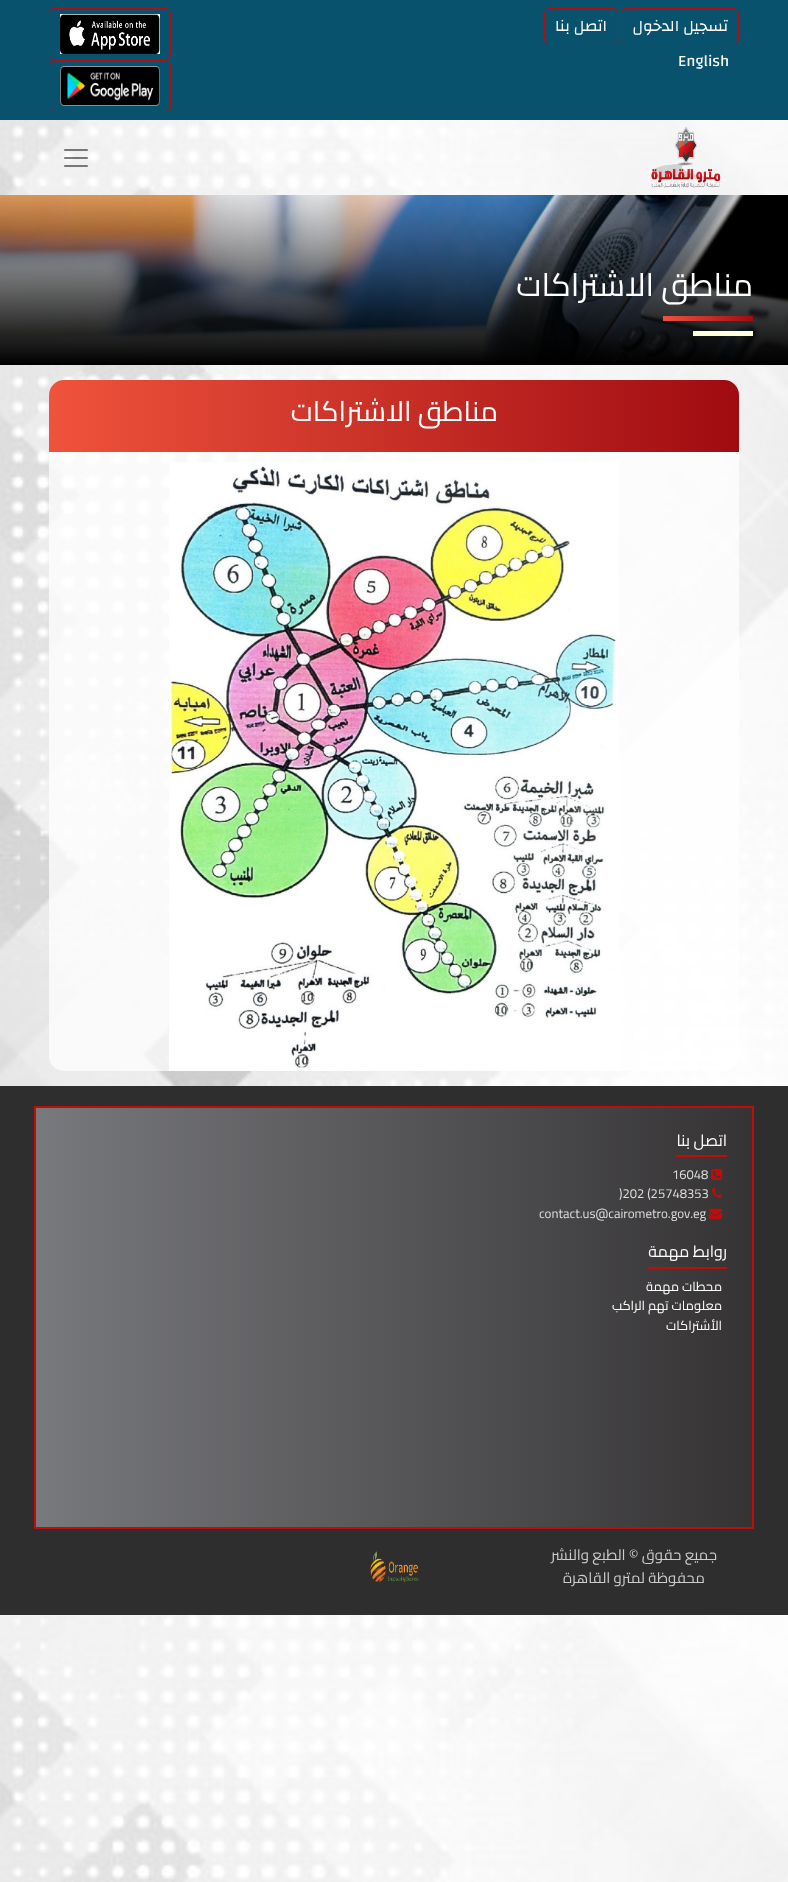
async function draw(canvas) {
  canvas.width = 788
  canvas.height = 1882
  const ctx = canvas.getContext('2d')
  ctx.miterLimit = 4
  ctx.fontKerning = 'normal'
  async function loadImage(src) {
    const img = new Image()
    img.src = src
    await img.decode()
    return img
  }
  let gradient

  ctx.fillStyle = '#fff'
  ctx.fillRect(0, 0, 788, 1882)
  ctx.drawImage(await loadImage('image0.png'), 0, 120, 788, 1762)
  ctx.fillStyle = '#08526d'
  ctx.fillRect(0, 0, 788, 120)
  ctx.beginPath()
  ctx.roundRect(621.5, 8.5, 117, 35, 4.5)
  ctx.strokeStyle = '#af1015'
  ctx.stroke()
  ctx.direction = 'rtl'
  ctx.font = '16px Changa'
  ctx.fillStyle = '#fff'
  ctx.fillText('تسجيل الدخول', 728, 31)
  ctx.beginPath()
  ctx.roundRect(544.5, 8.5, 73, 35, 4.5)
  ctx.stroke()
  ctx.fillText('اتصل بنا', 607, 31)
  ctx.direction = 'ltr'
  ctx.fillText('English', 678, 66)
  ctx.beginPath()
  ctx.roundRect(49.5, 8.5, 121, 51, 4.5)
  ctx.stroke()
  ctx.drawImage(await loadImage('image1.png'), 60, 14, 100, 40)
  ctx.beginPath()
  ctx.roundRect(49.5, 60.5, 121, 51, 4.5)
  ctx.stroke()
  ctx.drawImage(await loadImage('image2.png'), 60, 66, 100, 40)
  ctx.drawImage(await loadImage('image3.png'), 651, 127, 70, 61)
  ctx.drawImage(await loadImage('image4.png'), 64, 149, 24, 18)
  ctx.drawImage(await loadImage('image5.png'), 0, 195, 788, 170)
  ctx.direction = 'rtl'
  ctx.font = '32px Cairo'
  ctx.fillText('مناطق الاشتراكات', 753, 296)
  gradient = ctx.createLinearGradient(663, 319, 753, 319)
  gradient.addColorStop(0, '#ef533c')
  gradient.addColorStop(1, '#a00b11')
  ctx.fillStyle = gradient
  ctx.fillRect(663, 316, 90, 5)
  ctx.fillStyle = '#ffffde'
  ctx.fillRect(693, 331, 60, 5)
  ctx.fillStyle = '#ffffffb8'
  ctx.beginPath()
  ctx.roundRect(49, 380, 690, 691, 15)
  ctx.fill()
  gradient = ctx.createLinearGradient(49, 416, 739, 416)
  gradient.addColorStop(0, '#ef533c')
  gradient.addColorStop(1, '#a00b11')
  ctx.fillStyle = gradient
  ctx.beginPath()
  ctx.roundRect(49, 380, 690, 72, [15, 15, 0, 0])
  ctx.fill()
  ctx.font = '28px Cairo'
  ctx.fillStyle = '#fff'
  ctx.fillText('مناطق الاشتراكات', 498, 421)
  ctx.drawImage(await loadImage('image6.png'), 169, 462, 450, 609)
  ctx.fillStyle = '#2e2e2e'
  ctx.fillRect(0, 1086, 788, 529)
  gradient = ctx.createLinearGradient(36, 1318, 752, 1318)
  gradient.addColorStop(0, '#78797d')
  gradient.addColorStop(1, '#353334')
  ctx.fillStyle = gradient
  ctx.fillRect(36, 1108, 716, 419)
  ctx.strokeStyle = '#c10c0c'
  ctx.lineWidth = 2
  ctx.strokeRect(35, 1107, 718, 421)
  ctx.fillStyle = '#c10c0c'
  ctx.fillRect(676, 1155, 51, 2)
  ctx.font = '16px Cairo'
  ctx.fillStyle = '#fff'
  ctx.fillText('اتصل بنا', 727, 1146)
  ctx.drawImage(await loadImage('image7.png'), 711, 1168, 12, 12)
  ctx.direction = 'ltr'
  ctx.font = '13px Cairo'
  ctx.fillStyle = '#ddd'
  ctx.fillText('16048', 672, 1179)
  ctx.drawImage(await loadImage('image8.png'), 712, 1187, 11, 11)
  ctx.fillText(')202 (25748353', 619, 1198)
  ctx.drawImage(await loadImage('image9.png'), 709, 1208, 13, 11)
  ctx.fillText('contact.us@cairometro.gov.eg', 539, 1218)
  ctx.fillStyle = '#c10c0c'
  ctx.fillRect(648, 1267, 79, 2)
  ctx.direction = 'rtl'
  ctx.font = '16px Cairo'
  ctx.fillStyle = '#fff'
  ctx.fillText('روابط مهمة', 727, 1257)
  ctx.font = '13px Cairo'
  ctx.fillText('محطات مهمة', 722, 1291)
  ctx.fillText('معلومات تهم الراكب', 722, 1310)
  ctx.fillText('الأشتراكات', 722, 1330)
  ctx.font = '15px Cairo'
  ctx.fillStyle = '#ccc'
  ctx.fillText('جميع حقوق © الطبع والنشر', 717, 1560)
  ctx.fillText('محفوظة لمترو القاهرة', 705, 1583)
  ctx.drawImage(await loadImage('image10.png'), 370, 1551, 49, 31)
}

draw(document.querySelector('canvas'))
